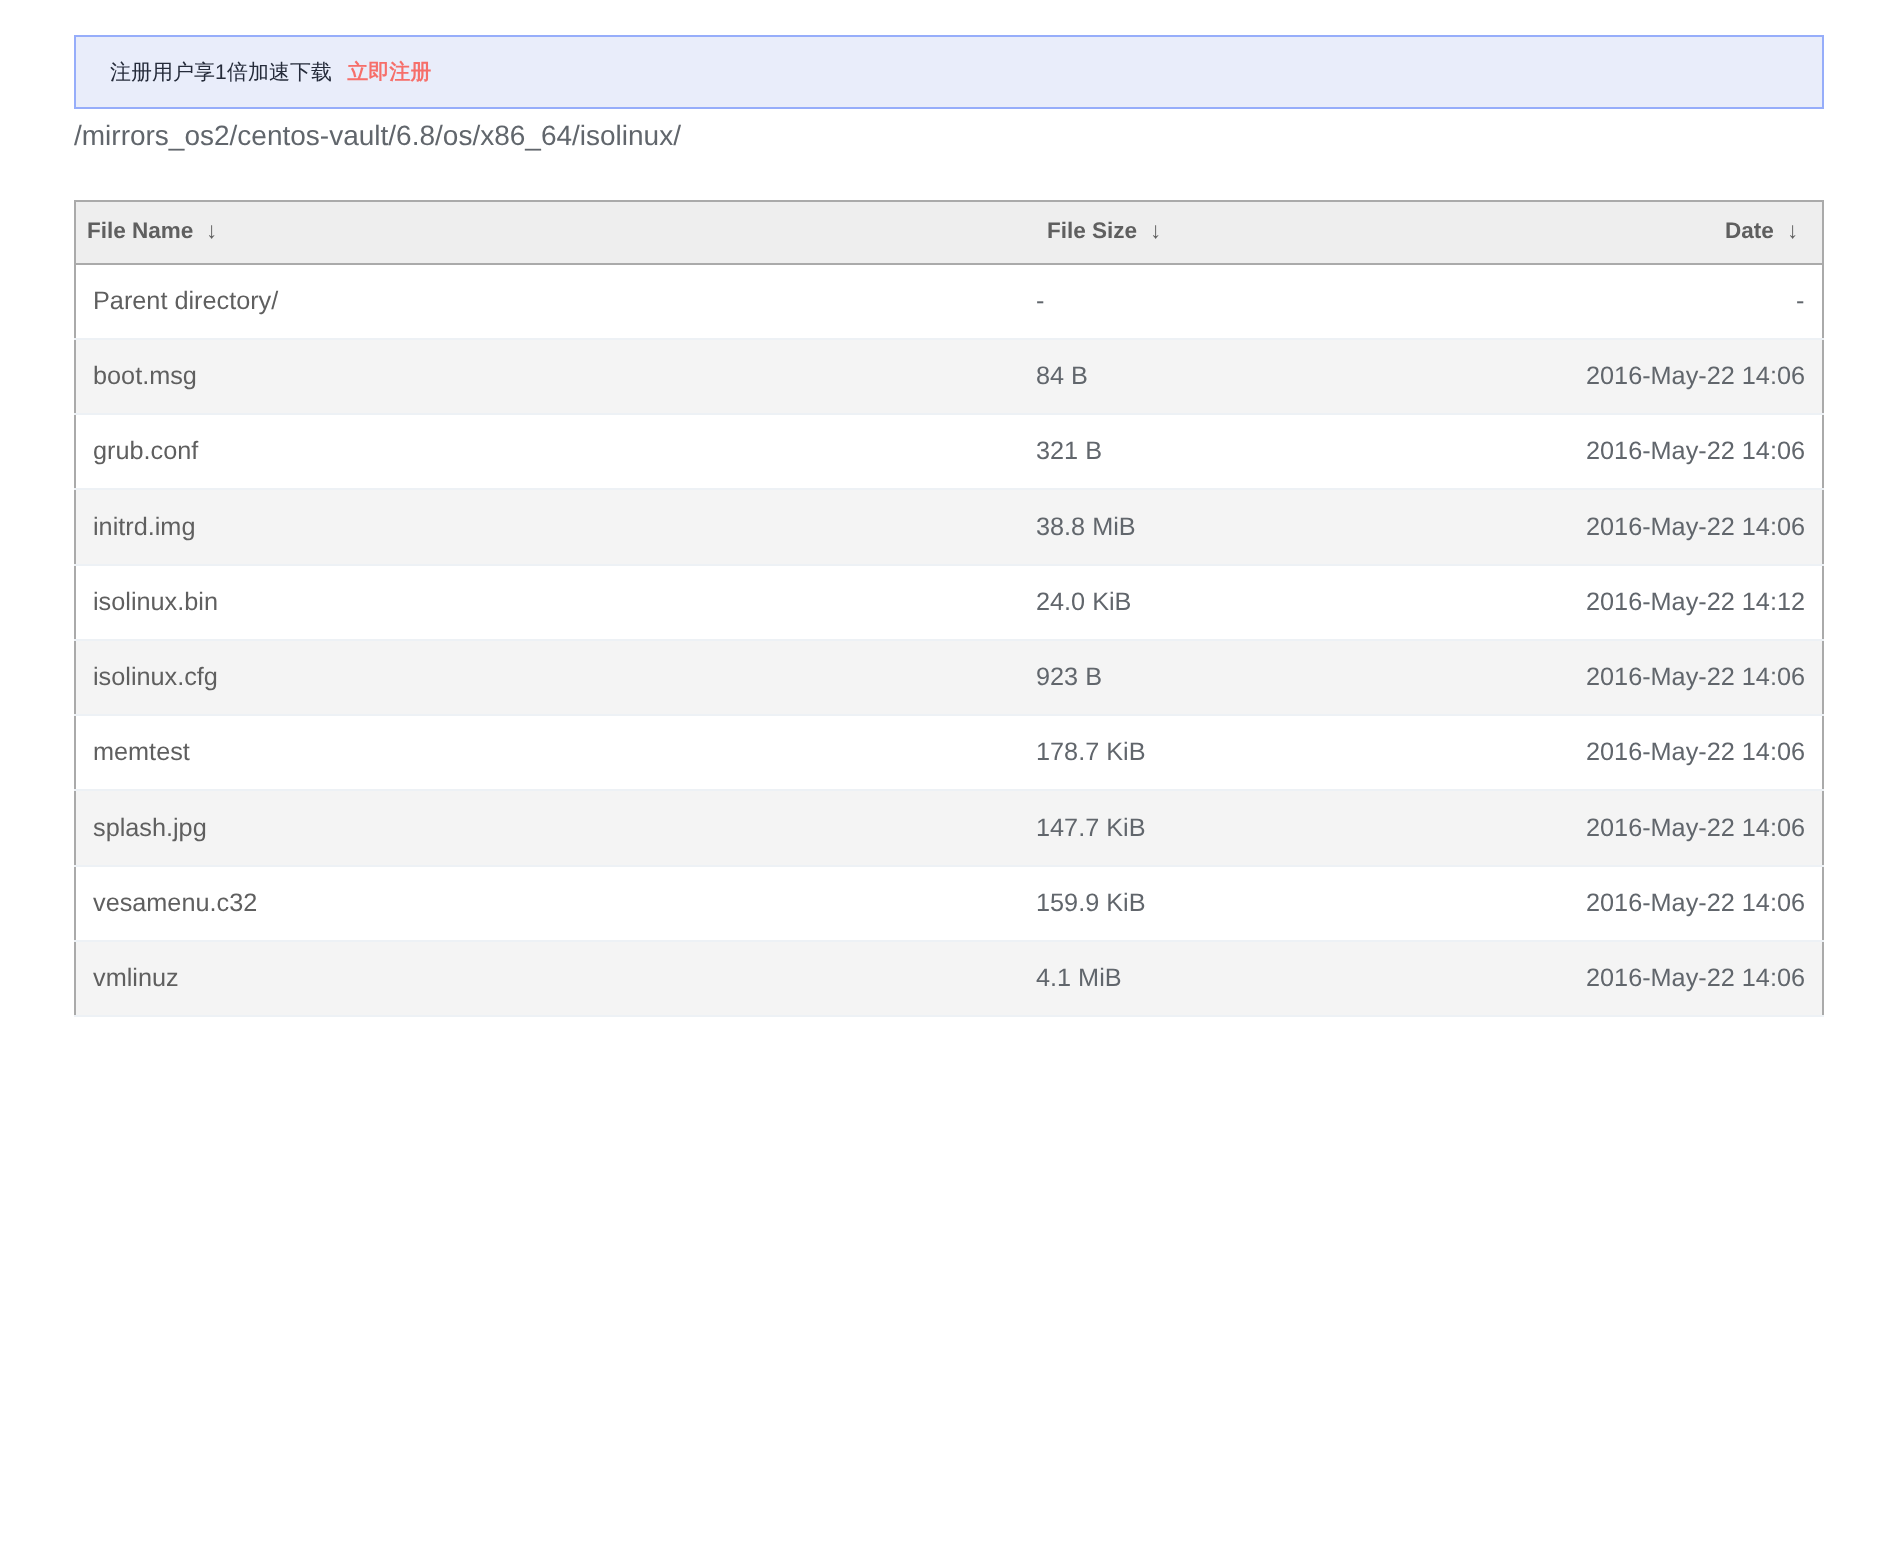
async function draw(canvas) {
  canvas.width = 1896
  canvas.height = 1550
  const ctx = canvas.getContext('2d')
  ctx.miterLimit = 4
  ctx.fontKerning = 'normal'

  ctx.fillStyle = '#fff'
  ctx.fillRect(0, 0, 1896, 1550)
  ctx.fillStyle = '#e9edfa'
  ctx.beginPath()
  ctx.rect(75, 36, 1748, 72)
  ctx.fill()
  ctx.strokeStyle = '#96adfa'
  ctx.lineWidth = 2
  ctx.stroke()
  ctx.font = '500 21px WenQuanYi Zen Hei'
  ctx.fillStyle = '#252b3a'
  ctx.fillText('注册用户享', 110, 79)
  ctx.font = '21px Liberation Sans'
  ctx.fillText('1', 215, 79)
  ctx.font = '500 21px WenQuanYi Zen Hei'
  ctx.fillText('倍加速下载', 227, 79)
  ctx.font = 'bold 21px WenQuanYi Zen Hei'
  ctx.fillStyle = '#f66f6a'
  ctx.fillText('立即注册', 347, 79)
  ctx.font = '28px Liberation Sans'
  ctx.fillStyle = '#61666c'
  ctx.fillText('/mirrors_os2/centos-vault/6.8/os/x86_64/isolinux/', 74, 145)
  ctx.fillStyle = '#aaa'
  ctx.fillRect(74, 200, 1750, 2)
  ctx.fillRect(1822, 200, 2, 817)
  ctx.fillRect(74, 200, 2, 817)
  ctx.fillStyle = '#eee'
  ctx.fillRect(76, 202, 1746, 61)
  ctx.font = 'bold 22.5px Liberation Sans'
  ctx.fillStyle = '#5f5f5f'
  ctx.fillText('File Name', 87, 238)
  ctx.fillText('↓', 206, 238)
  ctx.fillText('File Size', 1047, 238)
  ctx.fillText('↓', 1150, 238)
  ctx.fillStyle = '#aaa'
  ctx.fillRect(74, 263, 1750, 2)
  ctx.fillStyle = '#5f5f5f'
  ctx.fillText('Date', 1725, 238)
  ctx.fillText('↓', 1787, 238)
  ctx.font = '25.25px Liberation Sans'
  ctx.fillText('Parent directory/', 93, 309)
  ctx.fillStyle = '#61666c'
  ctx.fillText('-', 1036, 309)
  ctx.fillStyle = '#edf1f5'
  ctx.fillRect(74, 338, 1750, 2)
  ctx.fillStyle = '#61666c'
  ctx.fillText('-', 1796, 309)
  ctx.fillStyle = '#f4f4f4'
  ctx.fillRect(76, 340, 1746, 73)
  ctx.fillStyle = '#5f5f5f'
  ctx.fillText('boot.msg', 93, 384)
  ctx.fillStyle = '#61666c'
  ctx.fillText('84 B', 1036, 384)
  ctx.fillStyle = '#edf1f5'
  ctx.fillRect(74, 413, 1750, 2)
  ctx.fillStyle = '#61666c'
  ctx.fillText('2016-May-22 14:06', 1586, 384)
  ctx.fillStyle = '#5f5f5f'
  ctx.fillText('grub.conf', 93, 459)
  ctx.fillStyle = '#61666c'
  ctx.fillText('321 B', 1036, 459)
  ctx.fillStyle = '#edf1f5'
  ctx.fillRect(74, 488, 1750, 2)
  ctx.fillStyle = '#61666c'
  ctx.fillText('2016-May-22 14:06', 1586, 459)
  ctx.fillStyle = '#f4f4f4'
  ctx.fillRect(76, 490, 1746, 74)
  ctx.fillStyle = '#5f5f5f'
  ctx.fillText('initrd.img', 93, 535)
  ctx.fillStyle = '#61666c'
  ctx.fillText('38.8 MiB', 1036, 535)
  ctx.fillStyle = '#edf1f5'
  ctx.fillRect(74, 564, 1750, 2)
  ctx.fillStyle = '#61666c'
  ctx.fillText('2016-May-22 14:06', 1586, 535)
  ctx.fillStyle = '#5f5f5f'
  ctx.fillText('isolinux.bin', 93, 610)
  ctx.fillStyle = '#61666c'
  ctx.fillText('24.0 KiB', 1036, 610)
  ctx.fillStyle = '#edf1f5'
  ctx.fillRect(74, 639, 1750, 2)
  ctx.fillStyle = '#61666c'
  ctx.fillText('2016-May-22 14:12', 1586, 610)
  ctx.fillStyle = '#f4f4f4'
  ctx.fillRect(76, 641, 1746, 73)
  ctx.fillStyle = '#5f5f5f'
  ctx.fillText('isolinux.cfg', 93, 685)
  ctx.fillStyle = '#61666c'
  ctx.fillText('923 B', 1036, 685)
  ctx.fillStyle = '#edf1f5'
  ctx.fillRect(74, 714, 1750, 2)
  ctx.fillStyle = '#61666c'
  ctx.fillText('2016-May-22 14:06', 1586, 685)
  ctx.fillStyle = '#5f5f5f'
  ctx.fillText('memtest', 93, 760)
  ctx.fillStyle = '#61666c'
  ctx.fillText('178.7 KiB', 1036, 760)
  ctx.fillStyle = '#edf1f5'
  ctx.fillRect(74, 789, 1750, 2)
  ctx.fillStyle = '#61666c'
  ctx.fillText('2016-May-22 14:06', 1586, 760)
  ctx.fillStyle = '#f4f4f4'
  ctx.fillRect(76, 791, 1746, 74)
  ctx.fillStyle = '#5f5f5f'
  ctx.fillText('splash.jpg', 93, 836)
  ctx.fillStyle = '#61666c'
  ctx.fillText('147.7 KiB', 1036, 836)
  ctx.fillStyle = '#edf1f5'
  ctx.fillRect(74, 865, 1750, 2)
  ctx.fillStyle = '#61666c'
  ctx.fillText('2016-May-22 14:06', 1586, 836)
  ctx.fillStyle = '#5f5f5f'
  ctx.fillText('vesamenu.c32', 93, 911)
  ctx.fillStyle = '#61666c'
  ctx.fillText('159.9 KiB', 1036, 911)
  ctx.fillStyle = '#edf1f5'
  ctx.fillRect(74, 940, 1750, 2)
  ctx.fillStyle = '#61666c'
  ctx.fillText('2016-May-22 14:06', 1586, 911)
  ctx.fillStyle = '#f4f4f4'
  ctx.fillRect(76, 942, 1746, 73)
  ctx.fillStyle = '#5f5f5f'
  ctx.fillText('vmlinuz', 93, 986)
  ctx.fillStyle = '#61666c'
  ctx.fillText('4.1 MiB', 1036, 986)
  ctx.fillStyle = '#edf1f5'
  ctx.fillRect(74, 1015, 1750, 2)
  ctx.fillStyle = '#61666c'
  ctx.fillText('2016-May-22 14:06', 1586, 986)
}

draw(document.querySelector('canvas'))
